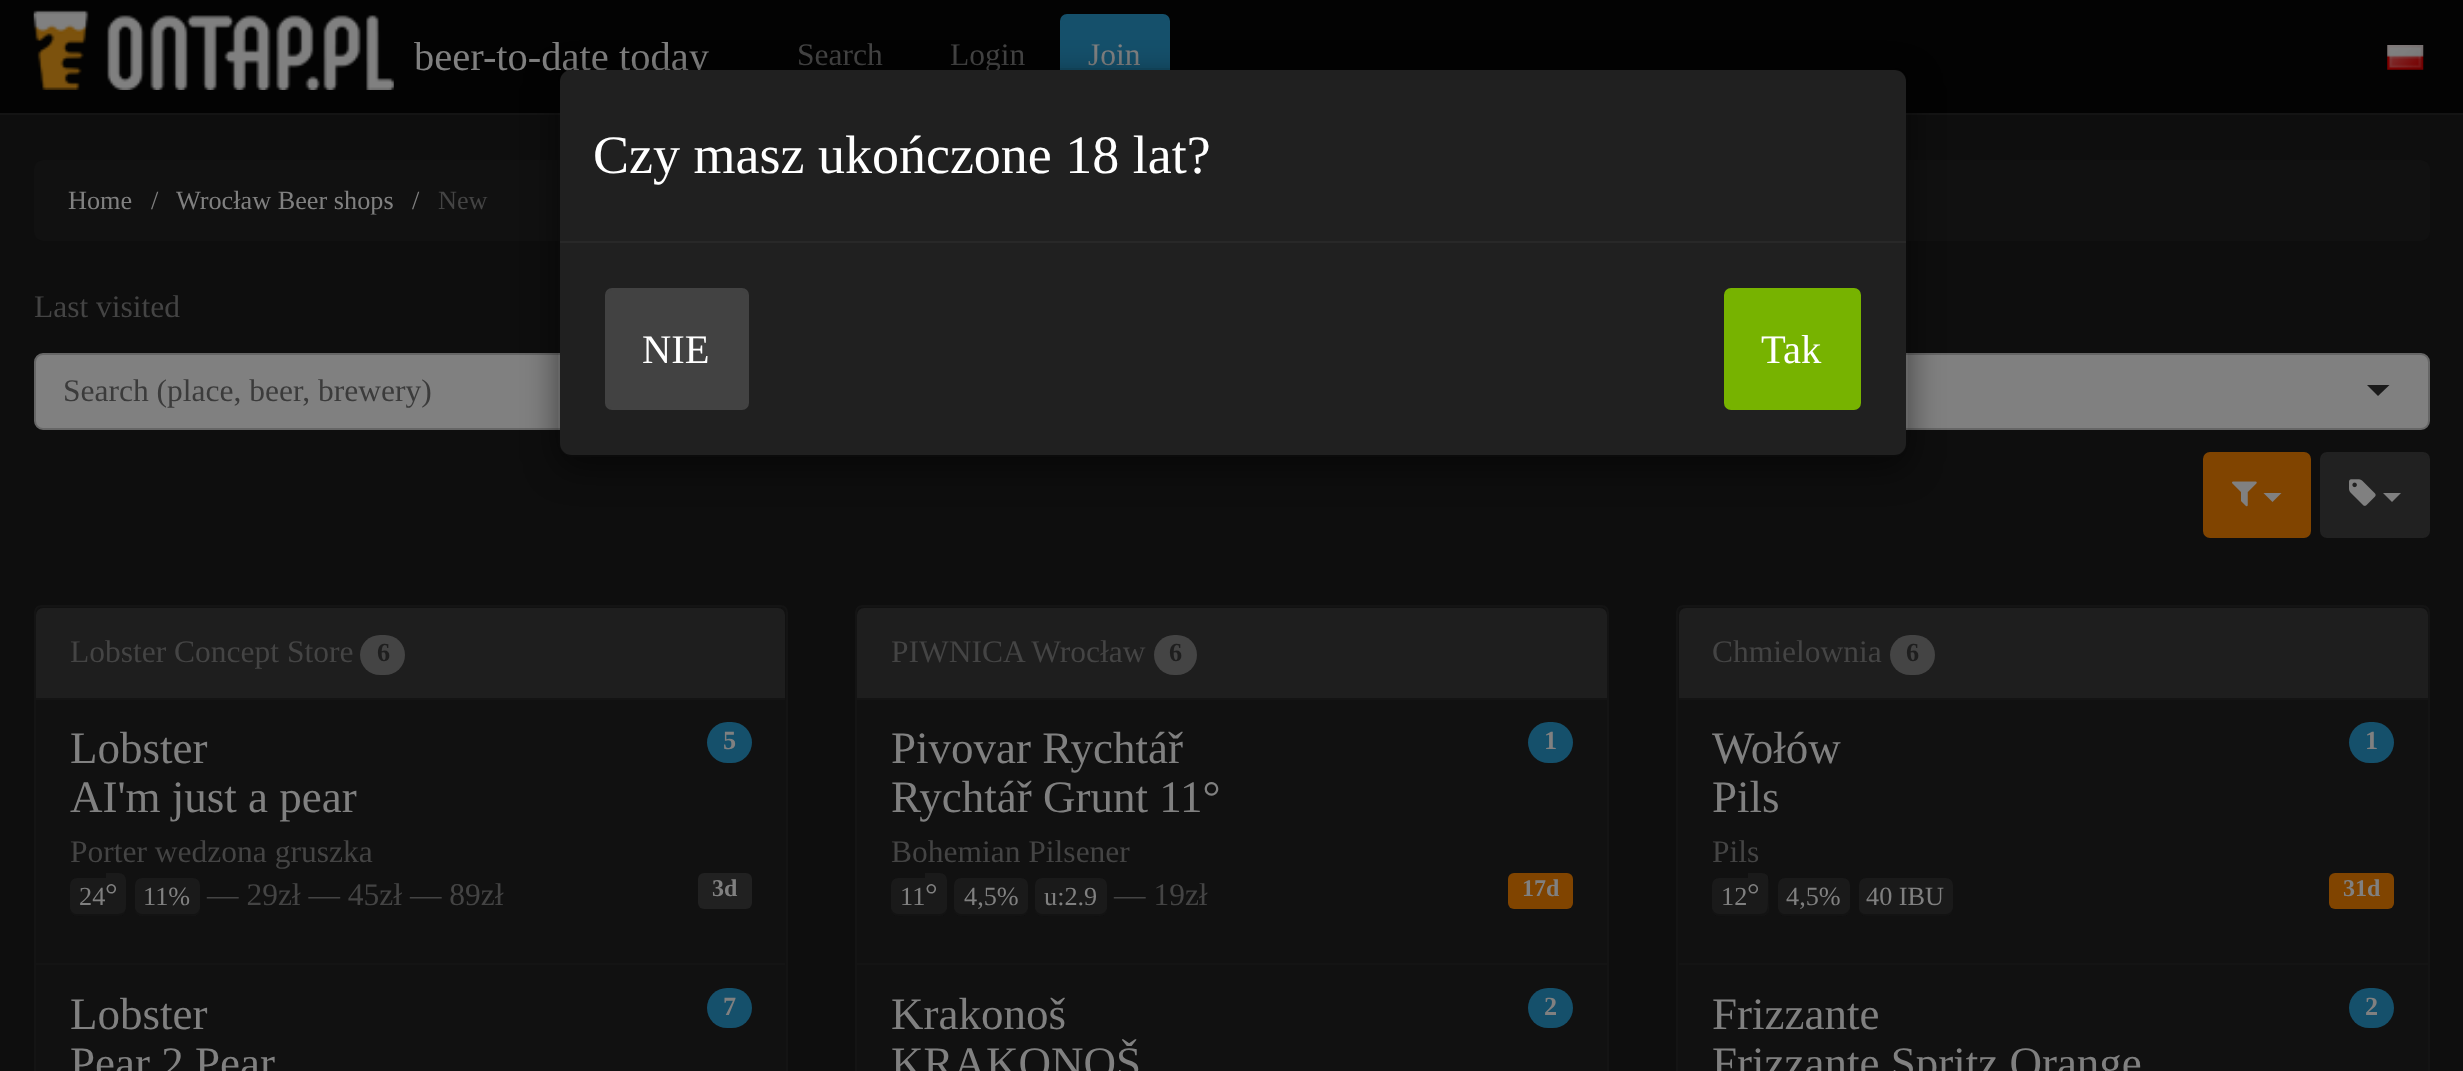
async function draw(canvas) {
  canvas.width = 2463
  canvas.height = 1071
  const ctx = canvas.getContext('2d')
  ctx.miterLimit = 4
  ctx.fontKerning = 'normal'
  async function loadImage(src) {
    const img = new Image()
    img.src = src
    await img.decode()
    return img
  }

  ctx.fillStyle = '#0e0e0e'
  ctx.fillRect(0, 0, 2463, 1071)
  ctx.fillStyle = '#030303'
  ctx.fillRect(0, 0, 2463, 113)
  ctx.fillStyle = '#141414'
  ctx.fillRect(0, 113, 2463, 2)
  ctx.drawImage(await loadImage('image0.png'), 33, 10, 361, 80)
  ctx.font = '40.5px Liberation Serif'
  ctx.fillStyle = '#808080'
  ctx.fillText('beer-to-date today', 414, 70)
  ctx.font = '31.5px Liberation Serif'
  ctx.fillStyle = '#444'
  ctx.fillText('Search', 797, 65)
  ctx.fillText('Login', 950, 65)
  ctx.fillStyle = '#15506b'
  ctx.beginPath()
  ctx.roundRect(1061, 15, 108, 83, 6)
  ctx.fill()
  ctx.strokeStyle = '#15506b'
  ctx.lineWidth = 2
  ctx.stroke()
  ctx.fillStyle = '#808080'
  ctx.fillText('Join', 1088, 65)
  ctx.drawImage(await loadImage('image1.png'), 2387, 45, 37, 25)
  ctx.fillStyle = '#111'
  ctx.beginPath()
  ctx.roundRect(34, 160, 2396, 81, 9)
  ctx.fill()
  ctx.font = '26.25px Liberation Serif'
  ctx.fillStyle = '#808080'
  ctx.fillText('Home', 68, 209)
  ctx.fillText('/', 151, 209)
  ctx.fillText('Wrocław Beer shops', 176, 209)
  ctx.fillText('/', 412, 209)
  ctx.fillStyle = '#444'
  ctx.fillText('New', 438, 209)
  ctx.fillStyle = '#808080'
  ctx.beginPath()
  ctx.roundRect(35, 354, 2394, 75, 8)
  ctx.fill()
  ctx.strokeStyle = '#666'
  ctx.stroke()
  ctx.save()
  ctx.beginPath()
  ctx.moveTo(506, 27)
  ctx.lineTo(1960, 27)
  ctx.lineTo(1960, 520)
  ctx.lineTo(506, 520)
  ctx.closePath()
  ctx.moveTo(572, 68)
  ctx.lineTo(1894, 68)
  ctx.bezierCurveTo(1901.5, 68, 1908, 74.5, 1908, 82)
  ctx.lineTo(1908, 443)
  ctx.bezierCurveTo(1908, 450.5, 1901.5, 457, 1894, 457)
  ctx.lineTo(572, 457)
  ctx.bezierCurveTo(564.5, 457, 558, 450.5, 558, 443)
  ctx.lineTo(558, 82)
  ctx.bezierCurveTo(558, 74.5, 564.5, 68, 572, 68)
  ctx.closePath()
  ctx.clip('evenodd')
  ctx.fillStyle = '#00000080'
  ctx.filter = 'blur(17px)'
  ctx.beginPath()
  ctx.roundRect(558, 79, 1350, 389, 14)
  ctx.fill()
  ctx.filter = 'none'
  ctx.restore()
  ctx.fillStyle = '#202020'
  ctx.beginPath()
  ctx.roundRect(560, 70, 1346, 385, 11)
  ctx.fill()
  ctx.beginPath()
  ctx.roundRect(559, 69, 1348, 387, 13)
  ctx.strokeStyle = '#00000033'
  ctx.stroke()
  ctx.fillStyle = '#282828'
  ctx.fillRect(560, 241, 1346, 2)
  ctx.font = '54px Liberation Serif'
  ctx.fillStyle = '#fff'
  ctx.fillText('Czy masz ukończone 18 lat?', 593, 173)
  ctx.fillStyle = '#424242'
  ctx.beginPath()
  ctx.roundRect(606, 289, 142, 120, 6)
  ctx.fill()
  ctx.strokeStyle = '#424242'
  ctx.stroke()
  ctx.font = '40.5px Liberation Serif'
  ctx.fillStyle = '#fff'
  ctx.fillText('NIE', 642, 363)
  ctx.fillStyle = '#77b300'
  ctx.beginPath()
  ctx.roundRect(1725, 289, 135, 120, 6)
  ctx.fill()
  ctx.strokeStyle = '#77b300'
  ctx.stroke()
  ctx.fillStyle = '#fff'
  ctx.fillText('Tak', 1761, 363)
  ctx.font = '31.5px Liberation Serif'
  ctx.fillStyle = '#444'
  ctx.fillText('Last visited', 34, 317)
  ctx.fillStyle = '#3b3b3b'
  ctx.fillText('Search (place, beer, brewery)', 63, 401)
  ctx.fillStyle = '#1a1a1a'
  ctx.beginPath()
  ctx.moveTo(2367, 385)
  ctx.lineTo(2389.5, 385)
  ctx.lineTo(2378, 396)
  ctx.closePath()
  ctx.fill()
  ctx.fillStyle = '#804400'
  ctx.beginPath()
  ctx.roundRect(2204, 453, 106, 84, 6)
  ctx.fill()
  ctx.strokeStyle = '#804400'
  ctx.stroke()
  ctx.drawImage(await loadImage('image2.png'), 2232, 481, 25, 26)
  ctx.fillStyle = '#808080'
  ctx.beginPath()
  ctx.moveTo(2263.5, 493)
  ctx.lineTo(2281.5, 493)
  ctx.lineTo(2272.5, 502)
  ctx.closePath()
  ctx.fill()
  ctx.fillStyle = '#212121'
  ctx.beginPath()
  ctx.roundRect(2321, 453, 108, 84, 6)
  ctx.fill()
  ctx.strokeStyle = '#212121'
  ctx.stroke()
  ctx.drawImage(await loadImage('image3.png'), 2349, 479, 27, 27)
  ctx.fillStyle = '#808080'
  ctx.beginPath()
  ctx.moveTo(2383, 493)
  ctx.lineTo(2401, 493)
  ctx.lineTo(2392, 502)
  ctx.closePath()
  ctx.fill()
  ctx.fillStyle = '#111'
  ctx.beginPath()
  ctx.roundRect(35, 606, 752, 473, 6)
  ctx.fill()
  ctx.strokeStyle = '#141414'
  ctx.stroke()
  ctx.fillStyle = '#1e1e1e'
  ctx.beginPath()
  ctx.roundRect(36, 608, 749, 92, [7, 7, 0, 0])
  ctx.fill()
  ctx.fillStyle = '#141414'
  ctx.fillRect(36, 698, 749, 2)
  ctx.fillStyle = '#444'
  ctx.fillText('Lobster Concept Store', 70, 662)
  ctx.beginPath()
  ctx.roundRect(360, 635, 45, 40, 20)
  ctx.fill()
  ctx.font = 'bold 26.25px Liberation Serif'
  ctx.fillStyle = '#1e1e1e'
  ctx.fillText('6', 377, 661)
  ctx.fillStyle = '#141414'
  ctx.fillRect(36, 963, 749, 2)
  ctx.font = '45px Liberation Serif'
  ctx.fillStyle = '#808080'
  ctx.fillText('Lobster', 70, 763)
  ctx.fillText('AI\'m just a pear', 70, 812)
  ctx.fillStyle = '#15506b'
  ctx.beginPath()
  ctx.roundRect(707, 722, 45, 41, 20.5)
  ctx.fill()
  ctx.font = 'bold 26.25px Liberation Serif'
  ctx.fillStyle = '#808080'
  ctx.fillText('5', 723, 749)
  ctx.font = '31.5px Liberation Serif'
  ctx.fillStyle = '#444'
  ctx.fillText('Porter wedzona gruszka', 70, 862)
  ctx.fillStyle = '#1a1a1a'
  ctx.beginPath()
  ctx.roundRect(70, 878, 36, 38, [7, 0, 0, 7])
  ctx.fill()
  ctx.font = '26.25px Liberation Serif'
  ctx.fillStyle = '#808080'
  ctx.fillText('24', 79, 905)
  ctx.fillStyle = '#00000040'
  ctx.beginPath()
  ctx.moveTo(70, 907)
  ctx.bezierCurveTo(70, 918, 78, 916, 86.5, 916)
  ctx.lineTo(106, 916)
  ctx.lineTo(106, 914)
  ctx.lineTo(76, 914)
  ctx.bezierCurveTo(73, 914, 70, 910, 70, 907)
  ctx.closePath()
  ctx.fill()
  ctx.fillStyle = '#1a1a1a'
  ctx.beginPath()
  ctx.roundRect(106, 873, 20, 43, [0, 7, 7, 0])
  ctx.fill()
  ctx.fillStyle = '#00000040'
  ctx.beginPath()
  ctx.moveTo(106, 914)
  ctx.lineTo(106, 916)
  ctx.lineTo(119, 916)
  ctx.bezierCurveTo(123, 916, 126, 913, 126, 909)
  ctx.lineTo(126, 904.5)
  ctx.bezierCurveTo(126, 910.5, 125, 913, 118, 914)
  ctx.closePath()
  ctx.fill()
  ctx.font = '31.5px Liberation Serif'
  ctx.fillStyle = '#808080'
  ctx.fillText('°', 105, 905)
  ctx.fillStyle = '#1a1a1a'
  ctx.beginPath()
  ctx.roundRect(135, 878, 65, 38, 7)
  ctx.fill()
  ctx.font = '26.25px Liberation Serif'
  ctx.fillStyle = '#808080'
  ctx.fillText('11%', 143, 905)
  ctx.fillStyle = '#00000040'
  ctx.beginPath()
  ctx.moveTo(135, 907)
  ctx.bezierCurveTo(135, 917, 142, 916, 150, 916)
  ctx.lineTo(184, 916)
  ctx.bezierCurveTo(193, 916, 200, 917, 200, 907)
  ctx.bezierCurveTo(200, 910, 197, 914, 194, 914)
  ctx.lineTo(142, 914)
  ctx.bezierCurveTo(138, 914, 135, 910, 135, 907)
  ctx.closePath()
  ctx.fill()
  ctx.font = '31.5px Liberation Serif'
  ctx.fillStyle = '#444'
  ctx.fillText('— 29zł — 45zł — 89zł', 207, 905)
  ctx.fillStyle = '#212121'
  ctx.beginPath()
  ctx.roundRect(698, 873, 54, 36, 6)
  ctx.fill()
  ctx.font = 'bold 24px Liberation Serif'
  ctx.fillStyle = '#808080'
  ctx.fillText('3d', 712, 896)
  ctx.font = '45px Liberation Serif'
  ctx.fillText('Lobster', 70, 1029)
  ctx.fillText('Pear 2 Pear', 70, 1078)
  ctx.fillStyle = '#15506b'
  ctx.beginPath()
  ctx.roundRect(707, 988, 45, 40, 20)
  ctx.fill()
  ctx.font = 'bold 26.25px Liberation Serif'
  ctx.fillStyle = '#808080'
  ctx.fillText('7', 723, 1015)
  ctx.fillStyle = '#111'
  ctx.beginPath()
  ctx.roundRect(856, 606, 752, 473, 6)
  ctx.fill()
  ctx.stroke()
  ctx.fillStyle = '#1e1e1e'
  ctx.beginPath()
  ctx.roundRect(857, 608, 750, 92, [7, 7, 0, 0])
  ctx.fill()
  ctx.fillStyle = '#141414'
  ctx.fillRect(857, 698, 750, 2)
  ctx.font = '31.5px Liberation Serif'
  ctx.fillStyle = '#444'
  ctx.fillText('PIWNICA Wrocław', 891, 662)
  ctx.beginPath()
  ctx.roundRect(1154, 635, 43, 40, 20)
  ctx.fill()
  ctx.font = 'bold 26.25px Liberation Serif'
  ctx.fillStyle = '#1e1e1e'
  ctx.fillText('6', 1169, 661)
  ctx.fillStyle = '#141414'
  ctx.fillRect(857, 963, 750, 2)
  ctx.font = '45px Liberation Serif'
  ctx.fillStyle = '#808080'
  ctx.fillText('Pivovar Rychtář', 891, 763)
  ctx.fillText('Rychtář Grunt 11°', 891, 812)
  ctx.fillStyle = '#15506b'
  ctx.beginPath()
  ctx.roundRect(1528, 722, 45, 41, 20.5)
  ctx.fill()
  ctx.font = 'bold 26.25px Liberation Serif'
  ctx.fillStyle = '#808080'
  ctx.fillText('1', 1544, 749)
  ctx.font = '31.5px Liberation Serif'
  ctx.fillStyle = '#444'
  ctx.fillText('Bohemian Pilsener', 891, 862)
  ctx.fillStyle = '#1a1a1a'
  ctx.beginPath()
  ctx.roundRect(891, 878, 34, 38, [7, 0, 0, 7])
  ctx.fill()
  ctx.font = '26.25px Liberation Serif'
  ctx.fillStyle = '#808080'
  ctx.fillText('11', 900, 905)
  ctx.fillStyle = '#00000040'
  ctx.beginPath()
  ctx.moveTo(891, 907)
  ctx.bezierCurveTo(891, 918, 898.5, 916, 907, 916)
  ctx.lineTo(925, 916)
  ctx.lineTo(925, 914)
  ctx.lineTo(898, 914)
  ctx.bezierCurveTo(894, 914, 891, 910, 891, 907)
  ctx.closePath()
  ctx.fill()
  ctx.fillStyle = '#1a1a1a'
  ctx.beginPath()
  ctx.roundRect(925, 873, 22, 43, [0, 7, 7, 0])
  ctx.fill()
  ctx.fillStyle = '#00000040'
  ctx.beginPath()
  ctx.moveTo(925, 914)
  ctx.lineTo(925, 916)
  ctx.lineTo(935, 916)
  ctx.bezierCurveTo(942.5, 916, 947, 916, 947, 907)
  ctx.bezierCurveTo(947, 910, 944, 914, 940, 914)
  ctx.closePath()
  ctx.fill()
  ctx.font = '31.5px Liberation Serif'
  ctx.fillStyle = '#808080'
  ctx.fillText('°', 925, 905)
  ctx.fillStyle = '#1a1a1a'
  ctx.beginPath()
  ctx.roundRect(954, 878, 74, 38, 7)
  ctx.fill()
  ctx.fillStyle = '#00000040'
  ctx.beginPath()
  ctx.moveTo(954, 907)
  ctx.bezierCurveTo(954, 918, 962, 916, 971, 916)
  ctx.lineTo(1011, 916)
  ctx.bezierCurveTo(1020, 916, 1028, 918, 1028, 907)
  ctx.bezierCurveTo(1028, 910, 1025, 914, 1022, 914)
  ctx.lineTo(961, 914)
  ctx.bezierCurveTo(957, 914, 954, 910, 954, 907)
  ctx.closePath()
  ctx.fill()
  ctx.font = '26.25px Liberation Serif'
  ctx.fillStyle = '#808080'
  ctx.fillText('4,5%', 964, 905)
  ctx.fillStyle = '#1a1a1a'
  ctx.beginPath()
  ctx.roundRect(1035, 878, 72, 38, 7)
  ctx.fill()
  ctx.fillStyle = '#808080'
  ctx.fillText('u:2.9', 1044, 905)
  ctx.fillStyle = '#00000040'
  ctx.beginPath()
  ctx.moveTo(1035, 907)
  ctx.bezierCurveTo(1035, 918, 1043, 916, 1052, 916)
  ctx.lineTo(1090, 916)
  ctx.bezierCurveTo(1099, 916, 1107, 918, 1107, 907)
  ctx.bezierCurveTo(1107, 910, 1104, 914, 1100, 914)
  ctx.lineTo(1042, 914)
  ctx.bezierCurveTo(1038, 914, 1035, 910, 1035, 907)
  ctx.closePath()
  ctx.fill()
  ctx.font = '31.5px Liberation Serif'
  ctx.fillStyle = '#444'
  ctx.fillText('— 19zł', 1114, 905)
  ctx.fillStyle = '#804400'
  ctx.beginPath()
  ctx.roundRect(1508, 873, 65, 36, 6)
  ctx.fill()
  ctx.font = 'bold 24px Liberation Serif'
  ctx.fillStyle = '#808080'
  ctx.fillText('17d', 1522, 896)
  ctx.font = '45px Liberation Serif'
  ctx.fillText('Krakonoš', 891, 1029)
  ctx.fillText('KRAKONOŠ', 891, 1078)
  ctx.fillStyle = '#15506b'
  ctx.beginPath()
  ctx.roundRect(1528, 988, 45, 40, 20)
  ctx.fill()
  ctx.font = 'bold 26.25px Liberation Serif'
  ctx.fillStyle = '#808080'
  ctx.fillText('2', 1544, 1015)
  ctx.fillStyle = '#111'
  ctx.beginPath()
  ctx.roundRect(1677, 606, 752, 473, 6)
  ctx.fill()
  ctx.stroke()
  ctx.fillStyle = '#1e1e1e'
  ctx.beginPath()
  ctx.roundRect(1679, 608, 749, 92, [7, 7, 0, 0])
  ctx.fill()
  ctx.fillStyle = '#141414'
  ctx.fillRect(1679, 698, 749, 2)
  ctx.font = '31.5px Liberation Serif'
  ctx.fillStyle = '#444'
  ctx.fillText('Chmielownia', 1712, 662)
  ctx.beginPath()
  ctx.roundRect(1890, 635, 45, 40, 20)
  ctx.fill()
  ctx.font = 'bold 26.25px Liberation Serif'
  ctx.fillStyle = '#1e1e1e'
  ctx.fillText('6', 1906, 661)
  ctx.fillStyle = '#141414'
  ctx.fillRect(1679, 963, 749, 2)
  ctx.font = '45px Liberation Serif'
  ctx.fillStyle = '#808080'
  ctx.fillText('Wołów', 1712, 763)
  ctx.fillText('Pils', 1712, 812)
  ctx.fillStyle = '#15506b'
  ctx.beginPath()
  ctx.roundRect(2349, 722, 45, 41, 20.5)
  ctx.fill()
  ctx.font = 'bold 26.25px Liberation Serif'
  ctx.fillStyle = '#808080'
  ctx.fillText('1', 2365, 749)
  ctx.font = '31.5px Liberation Serif'
  ctx.fillStyle = '#444'
  ctx.fillText('Pils', 1712, 862)
  ctx.fillStyle = '#1a1a1a'
  ctx.beginPath()
  ctx.roundRect(1712, 878, 36, 38, [7, 0, 0, 7])
  ctx.fill()
  ctx.font = '26.25px Liberation Serif'
  ctx.fillStyle = '#808080'
  ctx.fillText('12', 1721, 905)
  ctx.fillStyle = '#00000040'
  ctx.beginPath()
  ctx.moveTo(1712, 907)
  ctx.bezierCurveTo(1712, 918, 1720, 916, 1728.5, 916)
  ctx.lineTo(1748, 916)
  ctx.lineTo(1748, 914)
  ctx.lineTo(1719, 914)
  ctx.bezierCurveTo(1715, 914, 1712, 910, 1712, 907)
  ctx.closePath()
  ctx.fill()
  ctx.fillStyle = '#1a1a1a'
  ctx.beginPath()
  ctx.roundRect(1748, 873, 21, 43, [0, 7, 7, 0])
  ctx.fill()
  ctx.fillStyle = '#00000040'
  ctx.beginPath()
  ctx.moveTo(1748, 914)
  ctx.lineTo(1748, 916)
  ctx.bezierCurveTo(1770, 916, 1769, 918, 1769, 894)
  ctx.lineTo(1769, 885)
  ctx.bezierCurveTo(1769, 882, 1770, 878, 1768, 876)
  ctx.lineTo(1768, 896)
  ctx.bezierCurveTo(1768, 916, 1767, 914, 1748, 914)
  ctx.closePath()
  ctx.fill()
  ctx.font = '31.5px Liberation Serif'
  ctx.fillStyle = '#808080'
  ctx.fillText('°', 1747, 905)
  ctx.fillStyle = '#1a1a1a'
  ctx.beginPath()
  ctx.roundRect(1778, 878, 72, 38, 7)
  ctx.fill()
  ctx.fillStyle = '#00000040'
  ctx.beginPath()
  ctx.moveTo(1778, 907)
  ctx.bezierCurveTo(1778, 918, 1786, 916, 1795, 916)
  ctx.lineTo(1833, 916)
  ctx.bezierCurveTo(1842, 916, 1850, 918, 1850, 907)
  ctx.bezierCurveTo(1850, 910, 1846, 914, 1843, 914)
  ctx.lineTo(1784, 914)
  ctx.bezierCurveTo(1781, 914, 1778, 910, 1778, 907)
  ctx.closePath()
  ctx.fill()
  ctx.font = '26.25px Liberation Serif'
  ctx.fillStyle = '#808080'
  ctx.fillText('4,5%', 1786, 905)
  ctx.fillStyle = '#1a1a1a'
  ctx.beginPath()
  ctx.roundRect(1859, 878, 94, 38, 7)
  ctx.fill()
  ctx.fillStyle = '#808080'
  ctx.fillText('40 IBU', 1866, 905)
  ctx.fillStyle = '#00000040'
  ctx.beginPath()
  ctx.moveTo(1859, 910)
  ctx.bezierCurveTo(1860, 913, 1862, 916, 1866, 916)
  ctx.lineTo(1946, 916)
  ctx.bezierCurveTo(1950, 916, 1953, 913, 1953, 909)
  ctx.lineTo(1953, 907)
  ctx.bezierCurveTo(1953, 910, 1950, 914, 1946, 914)
  ctx.lineTo(1865, 914)
  ctx.bezierCurveTo(1863, 914, 1860, 912, 1859, 910)
  ctx.closePath()
  ctx.fill()
  ctx.fillStyle = '#804400'
  ctx.beginPath()
  ctx.roundRect(2329, 873, 65, 36, 6)
  ctx.fill()
  ctx.font = 'bold 24px Liberation Serif'
  ctx.fillStyle = '#808080'
  ctx.fillText('31d', 2343, 896)
  ctx.font = '45px Liberation Serif'
  ctx.fillText('Frizzante', 1712, 1029)
  ctx.fillText('Frizzante Spritz Orange', 1712, 1078)
  ctx.fillStyle = '#15506b'
  ctx.beginPath()
  ctx.roundRect(2349, 988, 45, 40, 20)
  ctx.fill()
  ctx.font = 'bold 26.25px Liberation Serif'
  ctx.fillStyle = '#808080'
  ctx.fillText('2', 2365, 1015)
}

draw(document.querySelector('canvas'))
